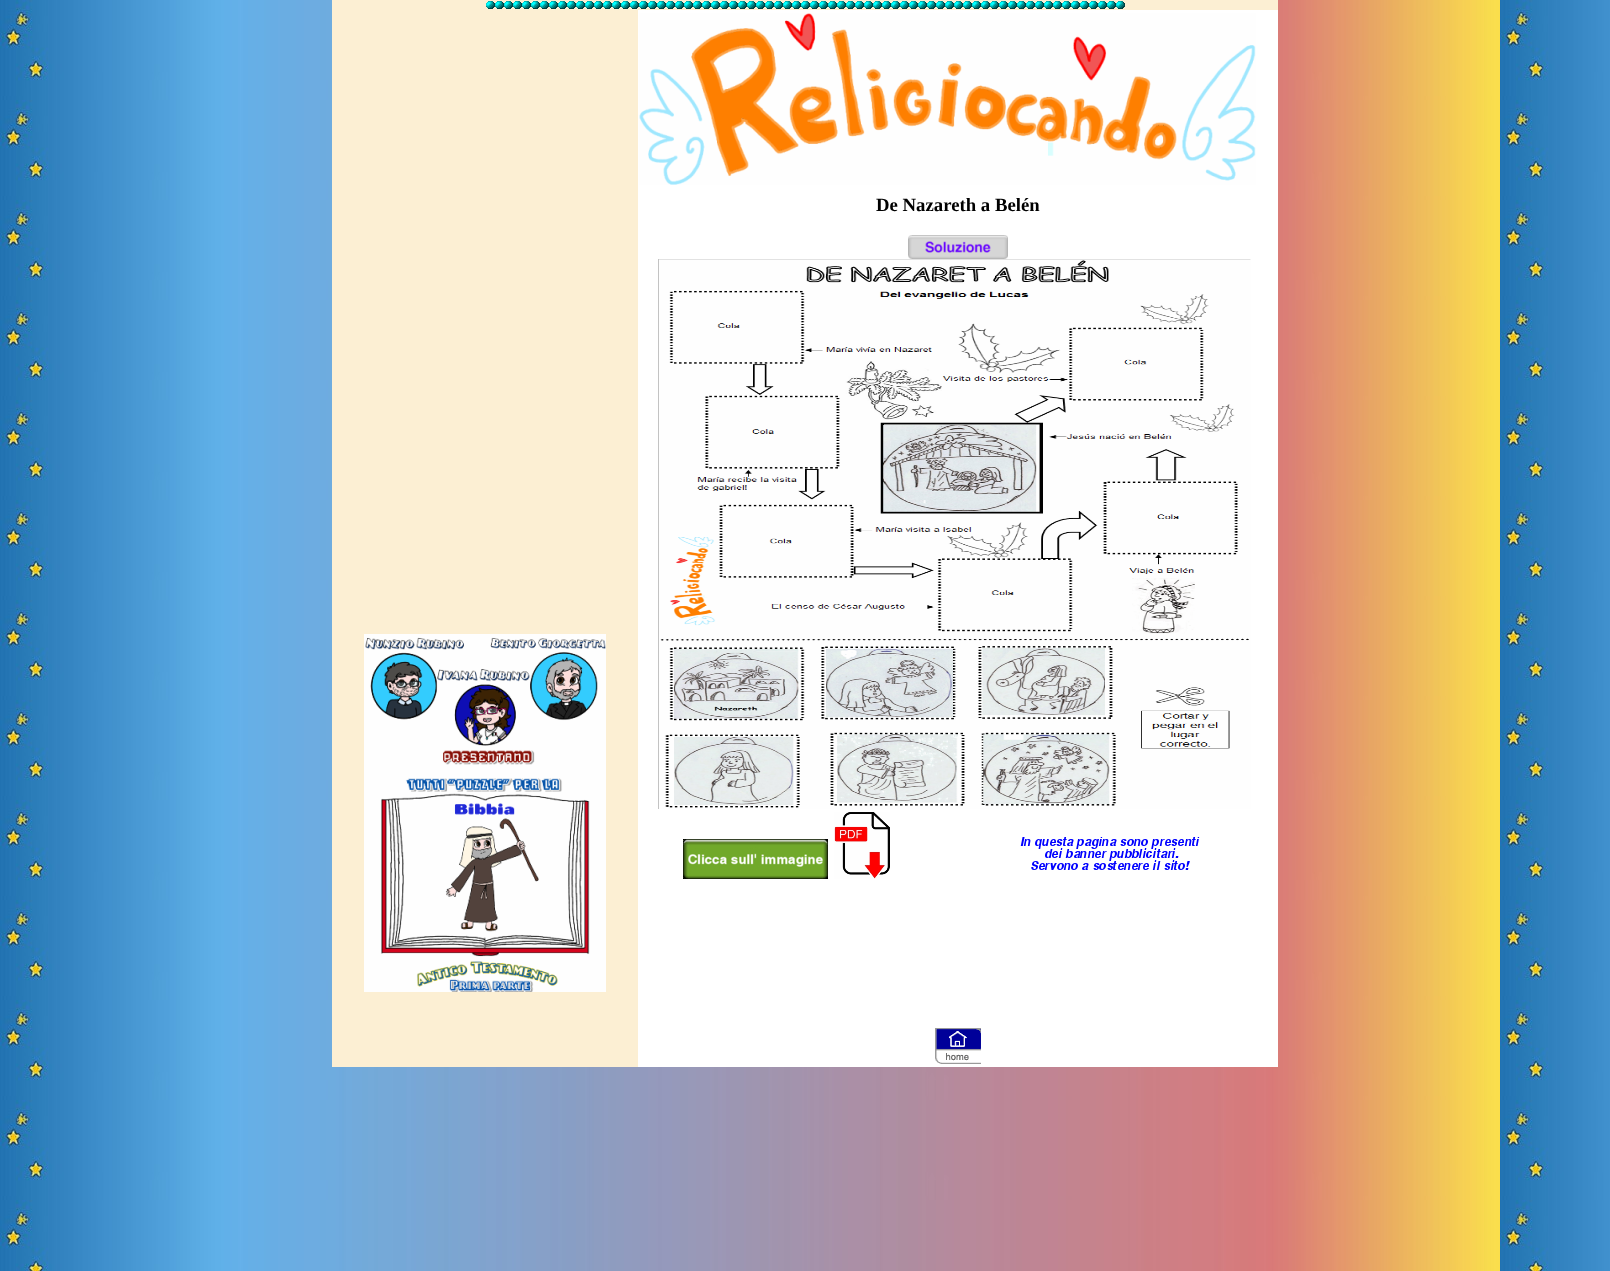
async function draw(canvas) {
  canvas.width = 1610
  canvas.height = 1271
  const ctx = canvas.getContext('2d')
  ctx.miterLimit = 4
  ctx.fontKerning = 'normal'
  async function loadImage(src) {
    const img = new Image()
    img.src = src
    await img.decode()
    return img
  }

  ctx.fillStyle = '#fff'
  ctx.fillRect(0, 0, 1610, 1271)
  ctx.drawImage(await loadImage('image0.png'), 0, 0, 1610, 1271)
  ctx.fillStyle = '#fcefd3'
  ctx.fillRect(332, 0, 946, 1067)
  ctx.drawImage(await loadImage('image1.png'), 486, 1, 639, 8)
  ctx.fillStyle = '#fff'
  ctx.fillRect(638, 10, 640, 799)
  ctx.drawImage(await loadImage('image2.png'), 639, 13, 617, 172)
  ctx.font = 'bold 18.75px Liberation Serif'
  ctx.fillStyle = '#000'
  ctx.fillText('De Nazareth a Belén', 876, 211)
  ctx.drawImage(await loadImage('image3.png'), 908, 235, 100, 24)
  ctx.drawImage(await loadImage('image4.png'), 658, 259, 593, 550)
  ctx.fillStyle = '#fff'
  ctx.fillRect(638, 809, 640, 258)
  ctx.drawImage(await loadImage('image5.png'), 683, 839, 145, 40)
  ctx.drawImage(await loadImage('image6.png'), 834, 812, 56, 67)
  ctx.drawImage(await loadImage('image7.png'), 1020, 837, 180, 33)
  ctx.drawImage(await loadImage('image8.png'), 935, 1028, 46, 36)
  ctx.drawImage(await loadImage('image9.png'), 364, 634, 242, 358)
}

draw(document.querySelector('canvas'))
